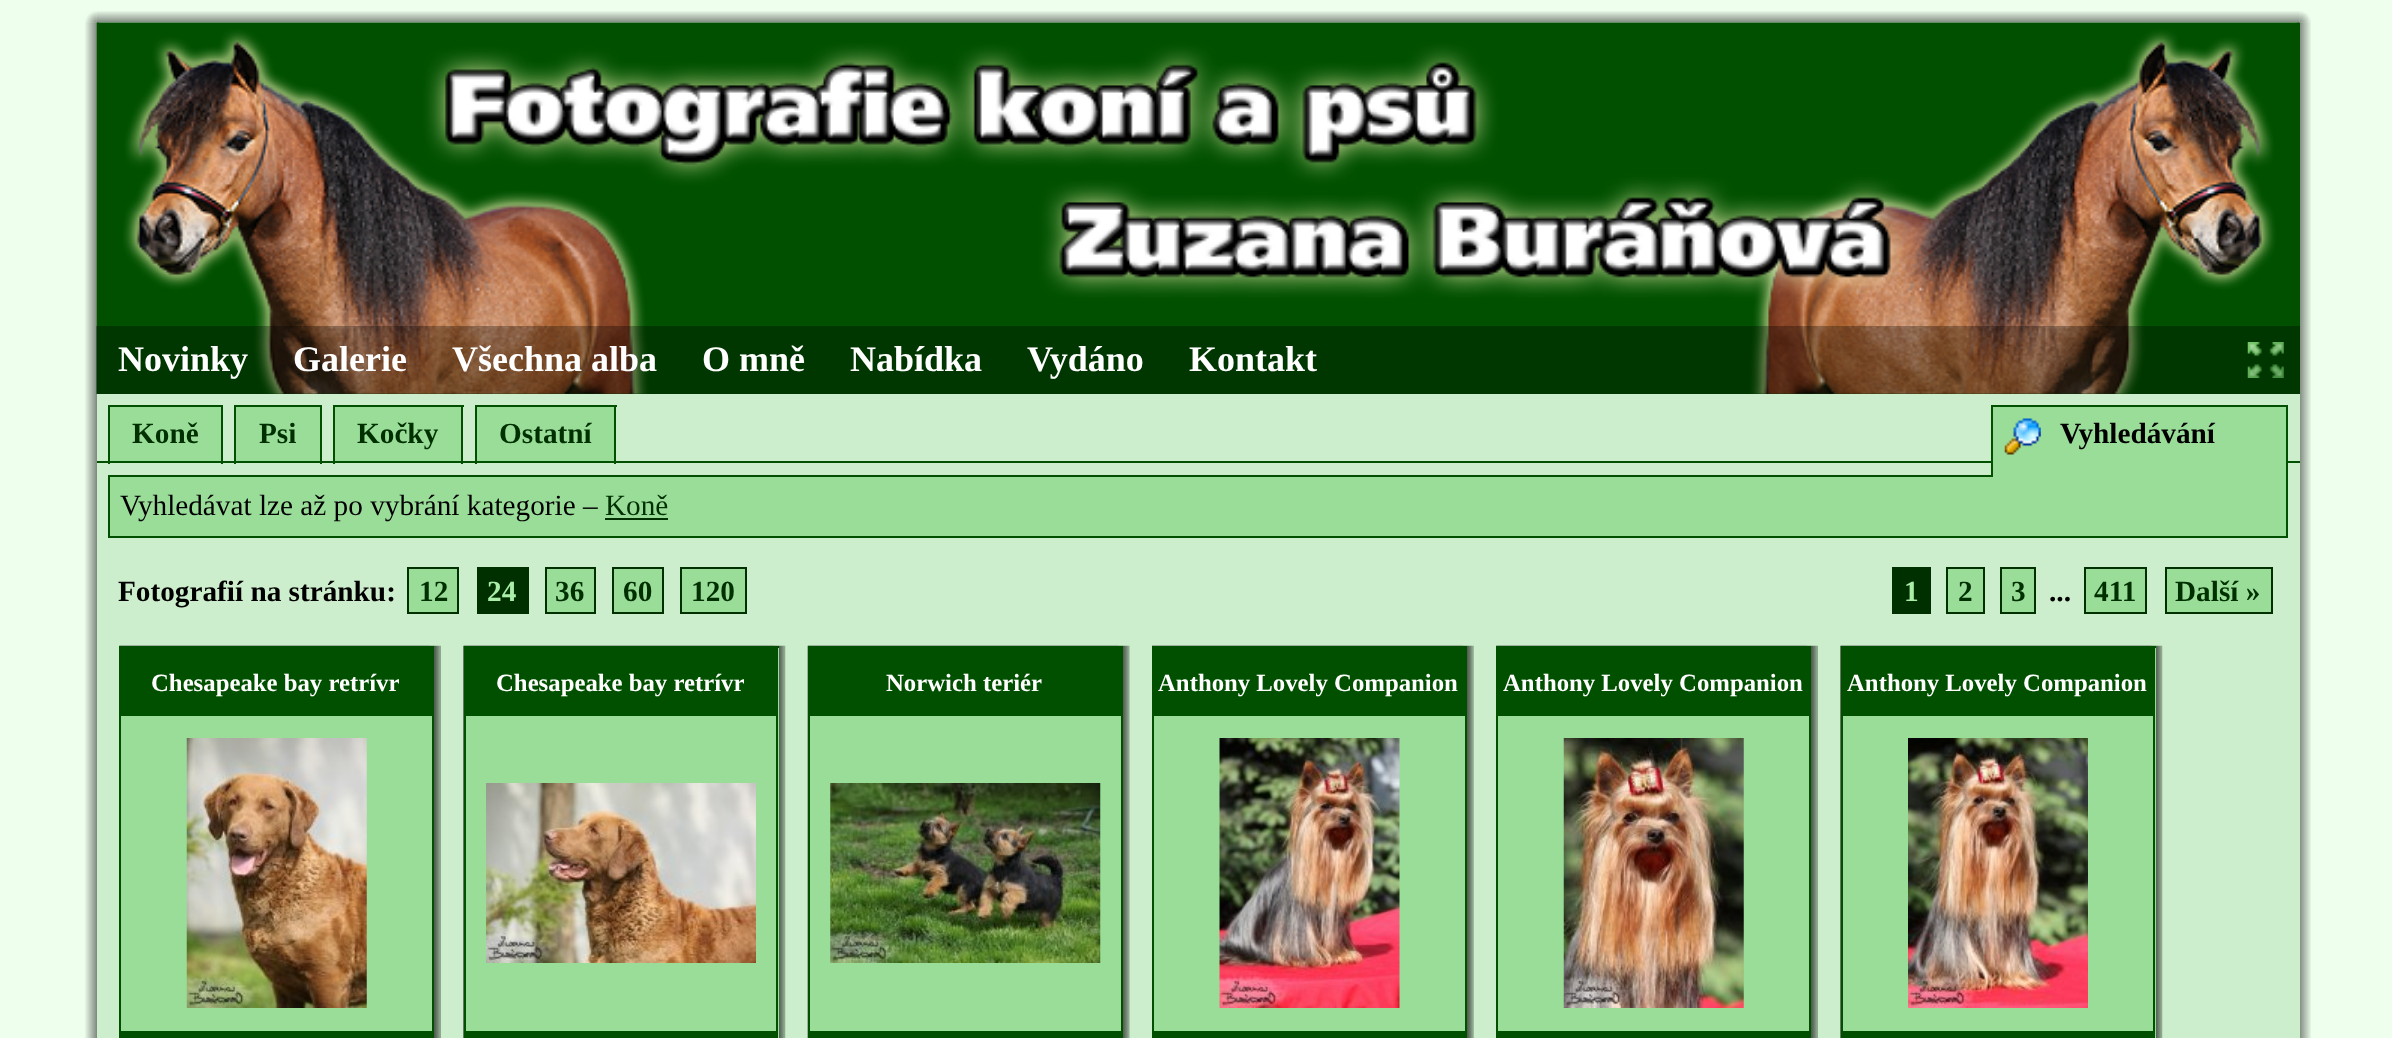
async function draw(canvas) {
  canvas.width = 2392
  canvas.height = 1038
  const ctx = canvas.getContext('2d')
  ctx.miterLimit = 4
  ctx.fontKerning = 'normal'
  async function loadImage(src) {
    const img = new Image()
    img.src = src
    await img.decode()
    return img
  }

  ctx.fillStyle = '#efe'
  ctx.fillRect(0, 0, 2392, 1038)
  ctx.drawImage(await loadImage('image0.png'), 96, 11, 2204, 12)
  ctx.drawImage(await loadImage('image1.png'), 85, 11, 12, 12)
  ctx.drawImage(await loadImage('image2.png'), 2299, 11, 12, 12)
  ctx.drawImage(await loadImage('image3.png'), 85, 22, 14, 1016)
  ctx.drawImage(await loadImage('image18.png'), 2297, 22, 14, 1016)
  ctx.fillStyle = '#cec'
  ctx.fillRect(97, 394, 2203, 644)
  ctx.fillStyle = '#005000'
  ctx.fillRect(97, 23, 2203, 371)
  ctx.drawImage(await loadImage('image4.png'), 96, 22, 2204, 372)
  ctx.fillStyle = '#0000004d'
  ctx.fillRect(96, 326, 2204, 68)
  ctx.font = 'bold 36px Liberation Serif'
  ctx.fillStyle = '#fff'
  ctx.fillText('Novinky', 118, 371)
  ctx.fillText('Galerie', 293, 371)
  ctx.fillText('Všechna alba', 452, 371)
  ctx.fillText('O mně', 702, 371)
  ctx.fillText('Nabídka', 850, 371)
  ctx.fillText('Vydáno', 1027, 371)
  ctx.fillText('Kontakt', 1189, 371)
  ctx.drawImage(await loadImage('image5.png'), 2247, 342, 37, 36)
  ctx.fillStyle = '#005000'
  ctx.fillRect(97, 461, 2203, 2)
  ctx.fillRect(108, 405, 115, 2)
  ctx.fillRect(221, 405, 2, 59)
  ctx.fillRect(108, 405, 2, 59)
  ctx.fillStyle = '#9d9'
  ctx.fillRect(110, 407, 111, 54)
  ctx.font = 'bold 29.25px Liberation Serif'
  ctx.fillStyle = '#003000'
  ctx.fillText('Koně', 132, 443)
  ctx.fillStyle = '#005000'
  ctx.fillRect(234, 405, 88, 2)
  ctx.fillRect(320, 405, 2, 59)
  ctx.fillRect(234, 405, 2, 59)
  ctx.fillStyle = '#9d9'
  ctx.fillRect(236, 407, 84, 54)
  ctx.fillStyle = '#003000'
  ctx.fillText('Psi', 259, 443)
  ctx.fillStyle = '#005000'
  ctx.fillRect(333, 405, 131, 2)
  ctx.fillRect(461, 405, 2, 59)
  ctx.fillRect(333, 405, 2, 59)
  ctx.fillStyle = '#9d9'
  ctx.fillRect(335, 407, 126, 54)
  ctx.fillStyle = '#003000'
  ctx.fillText('Kočky', 357, 443)
  ctx.fillStyle = '#005000'
  ctx.fillRect(475, 405, 142, 2)
  ctx.fillRect(614, 405, 2, 59)
  ctx.fillRect(475, 405, 2, 59)
  ctx.fillStyle = '#9d9'
  ctx.fillRect(477, 407, 137, 54)
  ctx.fillStyle = '#003000'
  ctx.fillText('Ostatní', 499, 443)
  ctx.fillStyle = '#9d9'
  ctx.beginPath()
  ctx.rect(109, 476, 2178, 61)
  ctx.fill()
  ctx.strokeStyle = '#005000'
  ctx.lineWidth = 2
  ctx.stroke()
  ctx.fillRect(1993, 407, 293, 70)
  ctx.drawImage(await loadImage('image6.png'), 2004, 418, 37, 37)
  ctx.fillStyle = '#005000'
  ctx.fillRect(1991, 405, 297, 2)
  ctx.fillRect(2286, 405, 2, 72)
  ctx.fillRect(1991, 405, 2, 72)
  ctx.fillStyle = '#000'
  ctx.fillText('Vyhledávání', 2060, 443)
  ctx.font = '29.25px Liberation Serif'
  ctx.fillText('Vyhledávat lze až po vybrání kategorie –', 120, 515)
  ctx.fillStyle = '#003000'
  ctx.fillText('Koně', 605, 515)
  ctx.fillRect(605, 518, 63, 2)
  ctx.font = 'bold 29.25px Liberation Serif'
  ctx.fillStyle = '#000'
  ctx.fillText('Fotografií na stránku:', 118, 601)
  ctx.fillStyle = '#9d9'
  ctx.beginPath()
  ctx.rect(408, 568, 50, 45)
  ctx.fill()
  ctx.strokeStyle = '#003000'
  ctx.stroke()
  ctx.fillStyle = '#003000'
  ctx.fillText('12', 419, 601)
  ctx.fillRect(477, 567, 52, 47)
  ctx.fillStyle = '#aea'
  ctx.fillText('24', 487, 601)
  ctx.fillStyle = '#9d9'
  ctx.beginPath()
  ctx.rect(546, 568, 49, 45)
  ctx.fill()
  ctx.stroke()
  ctx.fillStyle = '#003000'
  ctx.fillText('36', 555, 601)
  ctx.fillStyle = '#9d9'
  ctx.beginPath()
  ctx.rect(613, 568, 50, 45)
  ctx.fill()
  ctx.stroke()
  ctx.fillStyle = '#003000'
  ctx.fillText('60', 623, 601)
  ctx.fillStyle = '#9d9'
  ctx.beginPath()
  ctx.rect(681, 568, 65, 45)
  ctx.fill()
  ctx.stroke()
  ctx.fillStyle = '#003000'
  ctx.fillText('120', 691, 601)
  ctx.fillRect(1892, 567, 39, 47)
  ctx.fillStyle = '#aea'
  ctx.fillText('1', 1904, 601)
  ctx.fillStyle = '#9d9'
  ctx.beginPath()
  ctx.rect(1947, 568, 37, 45)
  ctx.fill()
  ctx.stroke()
  ctx.fillStyle = '#003000'
  ctx.fillText('2', 1958, 601)
  ctx.fillStyle = '#9d9'
  ctx.beginPath()
  ctx.rect(2001, 568, 34, 45)
  ctx.fill()
  ctx.stroke()
  ctx.fillStyle = '#003000'
  ctx.fillText('3', 2011, 601)
  ctx.fillStyle = '#000'
  ctx.fillText('...', 2049, 601)
  ctx.fillStyle = '#9d9'
  ctx.beginPath()
  ctx.rect(2085, 568, 61, 45)
  ctx.fill()
  ctx.stroke()
  ctx.fillStyle = '#003000'
  ctx.fillText('411', 2094, 601)
  ctx.fillStyle = '#9d9'
  ctx.beginPath()
  ctx.rect(2166, 568, 106, 45)
  ctx.fill()
  ctx.stroke()
  ctx.fillStyle = '#003000'
  ctx.fillText('Další »', 2175, 601)
  ctx.drawImage(await loadImage('image7.png'), 119, 645, 322, 393)
  ctx.fillStyle = '#9d9'
  ctx.fillRect(121, 716, 311, 315)
  ctx.fillStyle = '#005000'
  ctx.fillRect(119, 646, 315, 2)
  ctx.fillRect(432, 646, 2, 392)
  ctx.fillRect(119, 1031, 313, 7)
  ctx.fillRect(119, 646, 2, 392)
  ctx.fillRect(121, 648, 311, 68)
  ctx.font = 'bold 24.75px Liberation Serif'
  ctx.fillStyle = '#fff'
  ctx.fillText('Chesapeake bay retrívr', 151, 691)
  ctx.drawImage(await loadImage('image8.png'), 186, 738, 181, 270)
  ctx.drawImage(await loadImage('image9.png'), 463, 645, 323, 393)
  ctx.fillStyle = '#9d9'
  ctx.fillRect(466, 648, 313, 390)
  ctx.fillStyle = '#005000'
  ctx.fillRect(464, 646, 315, 2)
  ctx.fillRect(776, 646, 2, 392)
  ctx.fillRect(464, 1031, 312, 7)
  ctx.fillRect(464, 646, 2, 392)
  ctx.fillRect(466, 648, 310, 68)
  ctx.fillStyle = '#fff'
  ctx.fillText('Chesapeake bay retrívr', 496, 691)
  ctx.drawImage(await loadImage('image10.png'), 486, 783, 270, 180)
  ctx.drawImage(await loadImage('image11.png'), 807, 645, 323, 393)
  ctx.fillStyle = '#9d9'
  ctx.fillRect(810, 716, 311, 315)
  ctx.fillStyle = '#005000'
  ctx.fillRect(808, 646, 315, 2)
  ctx.fillRect(1121, 646, 2, 392)
  ctx.fillRect(808, 1031, 313, 7)
  ctx.fillRect(808, 646, 2, 392)
  ctx.fillRect(810, 648, 311, 68)
  ctx.fillStyle = '#fff'
  ctx.fillText('Norwich teriér', 886, 691)
  ctx.drawImage(await loadImage('image12.png'), 830, 783, 271, 180)
  ctx.drawImage(await loadImage('image13.png'), 1152, 645, 322, 393)
  ctx.fillStyle = '#9d9'
  ctx.fillRect(1154, 716, 311, 315)
  ctx.fillStyle = '#005000'
  ctx.fillRect(1152, 646, 315, 2)
  ctx.fillRect(1465, 646, 2, 392)
  ctx.fillRect(1152, 1031, 313, 7)
  ctx.fillRect(1152, 646, 2, 392)
  ctx.fillRect(1154, 648, 311, 68)
  ctx.fillStyle = '#fff'
  ctx.fillText('Anthony Lovely Companion', 1158, 691)
  ctx.drawImage(await loadImage('image14.png'), 1219, 738, 181, 270)
  ctx.drawImage(await loadImage('image15.png'), 1496, 645, 322, 393)
  ctx.fillStyle = '#9d9'
  ctx.fillRect(1498, 716, 311, 315)
  ctx.fillStyle = '#005000'
  ctx.fillRect(1496, 646, 315, 2)
  ctx.fillRect(1809, 646, 2, 392)
  ctx.fillRect(1496, 1031, 313, 7)
  ctx.fillRect(1496, 646, 2, 392)
  ctx.fillRect(1498, 648, 311, 68)
  ctx.fillStyle = '#fff'
  ctx.fillText('Anthony Lovely Companion', 1503, 691)
  ctx.drawImage(await loadImage('image16.png'), 1563, 738, 181, 270)
  ctx.drawImage(await loadImage('image9.png'), 1840, 645, 323, 393)
  ctx.fillStyle = '#9d9'
  ctx.fillRect(1843, 648, 313, 390)
  ctx.fillStyle = '#005000'
  ctx.fillRect(1841, 646, 315, 2)
  ctx.fillRect(2153, 646, 2, 392)
  ctx.fillRect(1841, 1031, 312, 7)
  ctx.fillRect(1841, 646, 2, 392)
  ctx.fillRect(1843, 648, 310, 68)
  ctx.fillStyle = '#fff'
  ctx.fillText('Anthony Lovely Companion', 1847, 691)
  ctx.drawImage(await loadImage('image17.png'), 1908, 738, 180, 270)
}

draw(document.querySelector('canvas'))
